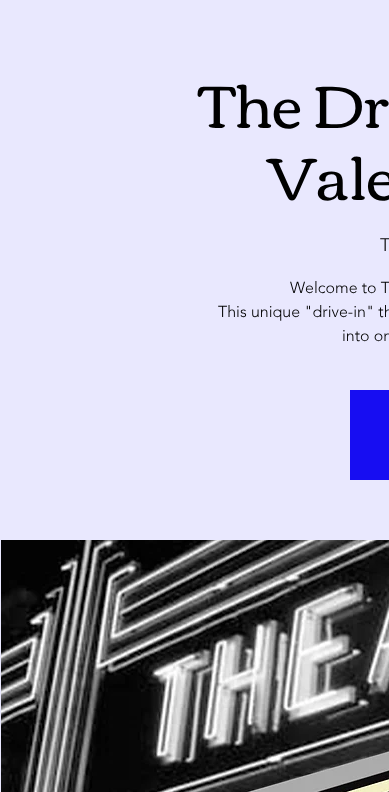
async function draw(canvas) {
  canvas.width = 389
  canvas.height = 792
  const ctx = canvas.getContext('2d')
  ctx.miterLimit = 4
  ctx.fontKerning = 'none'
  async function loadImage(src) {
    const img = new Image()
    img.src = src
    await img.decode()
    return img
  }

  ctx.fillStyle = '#e9e8fe'
  ctx.fillRect(0, 0, 389, 792)
  ctx.font = '60px Corben'
  ctx.fillStyle = '#000'
  ctx.fillText('The Dr', 199, 128)
  ctx.fillText('Vale', 268, 200)
  ctx.font = '300 18px "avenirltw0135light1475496"'
  ctx.fillText('T', 380, 251)
  ctx.font = '300 16px "avenirltw0135light1475496"'
  ctx.fillText('Welcome to T', 290, 293)
  ctx.fillText('This unique "drive-in" th', 218, 317)
  ctx.fillText('into on', 342, 341)
  ctx.fillStyle = '#170df2'
  ctx.fillRect(350, 390, 39, 90)
  ctx.drawImage(await loadImage('image0.png'), 1, 540, 388, 252)
}

draw(document.querySelector('canvas'))
